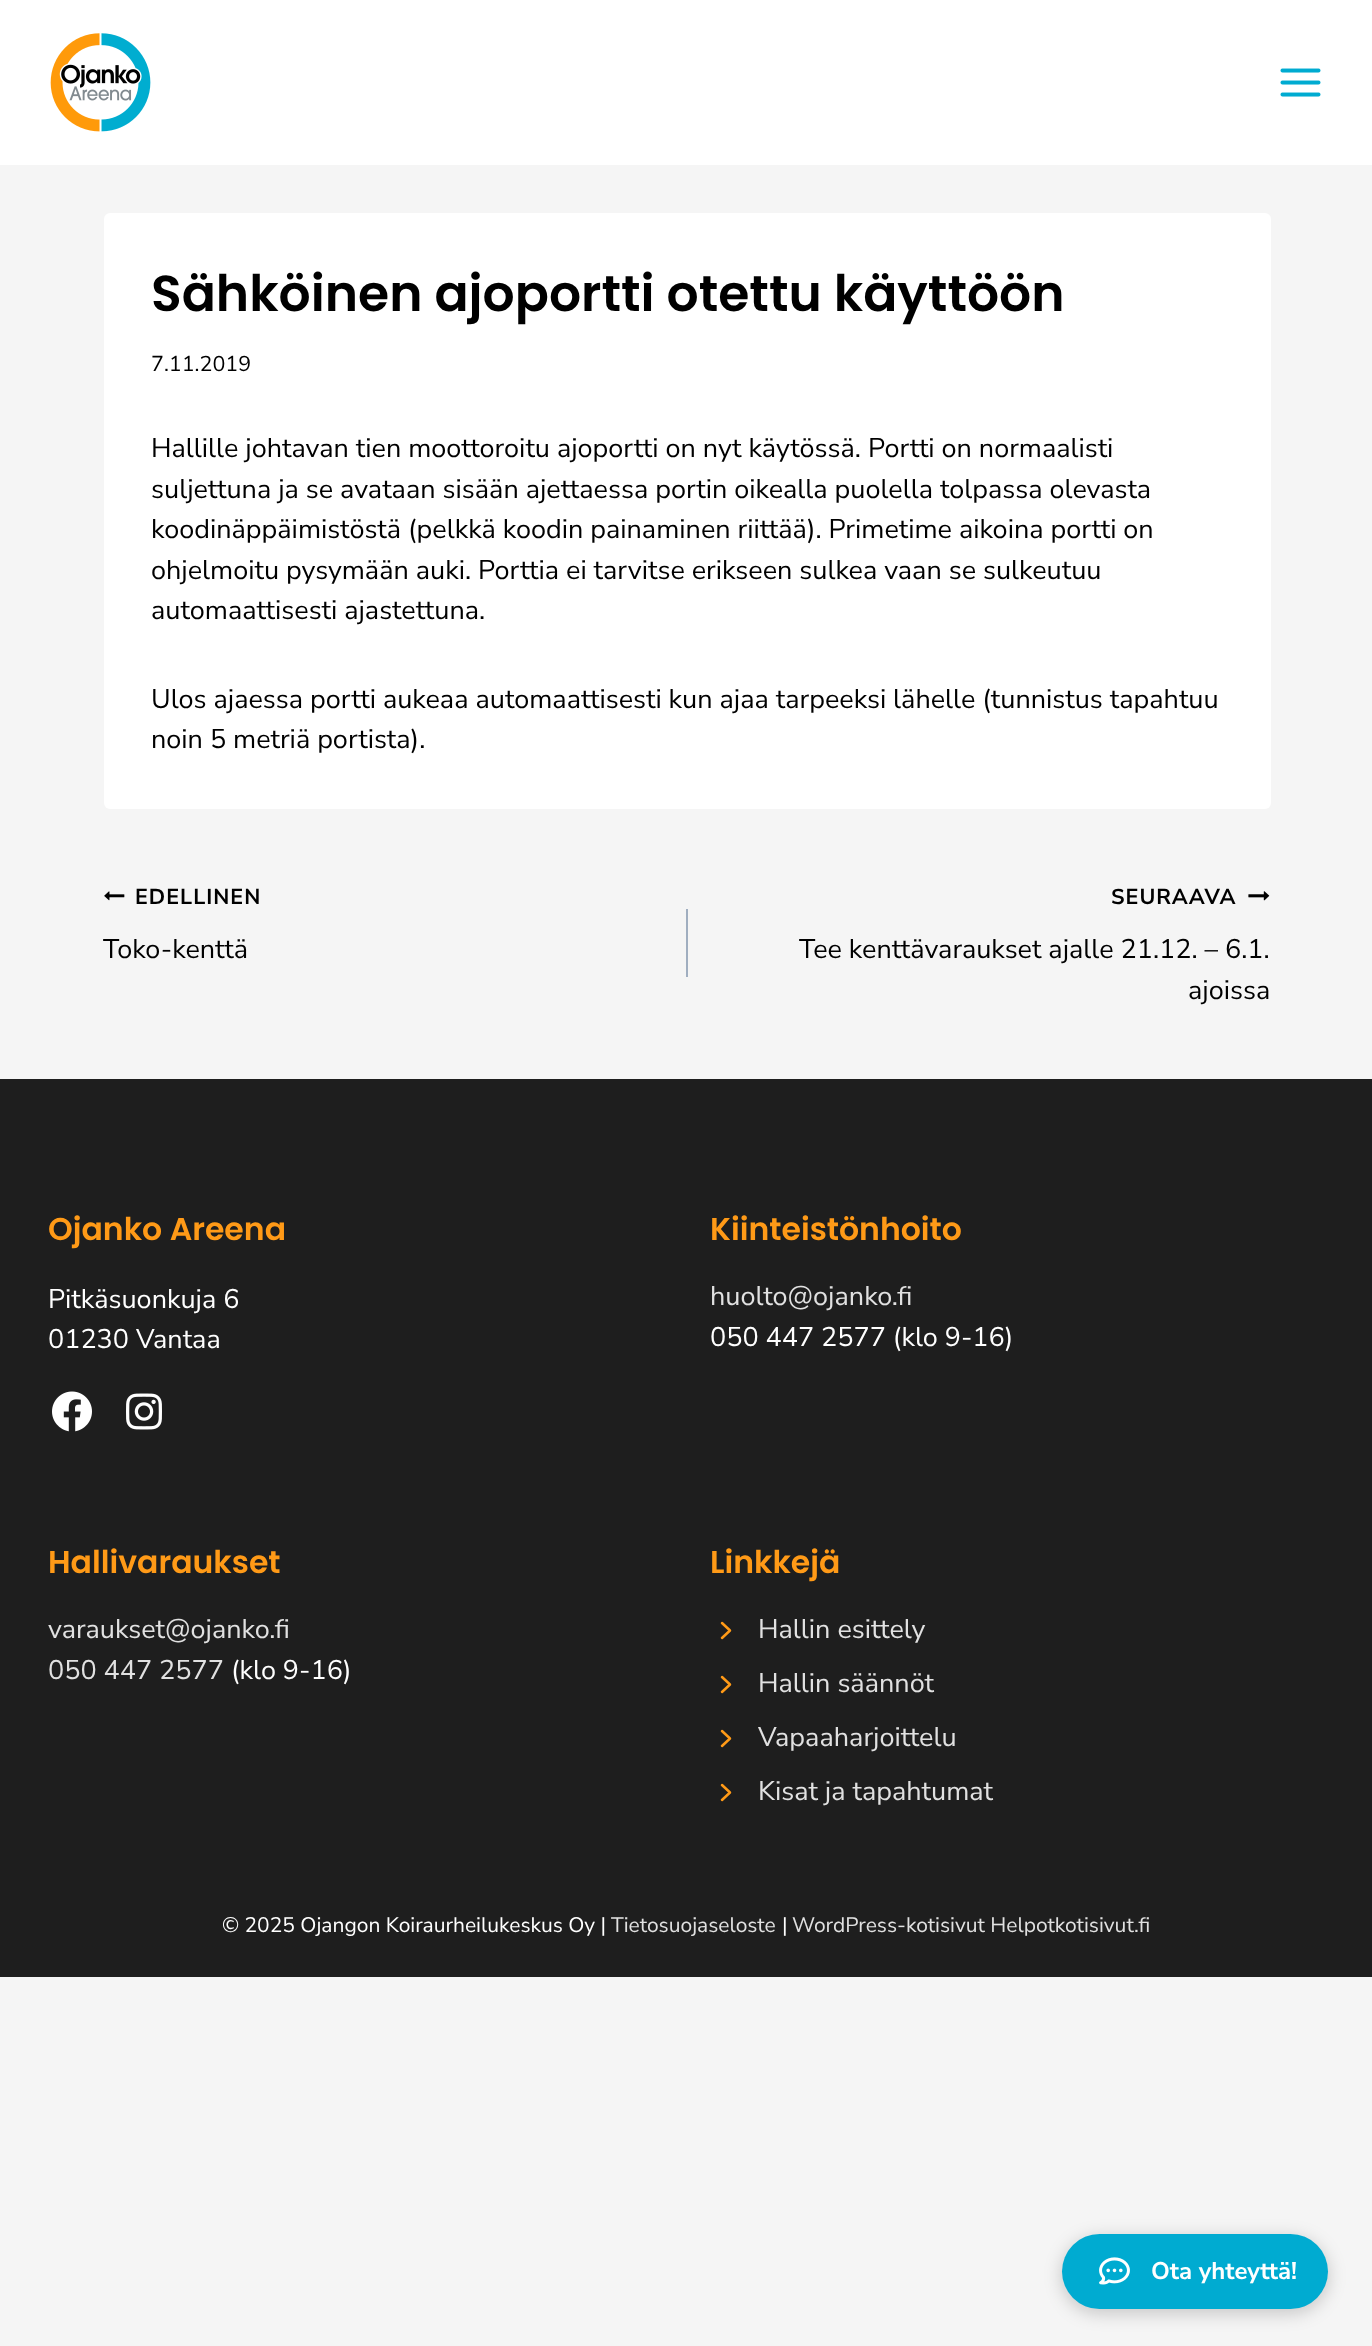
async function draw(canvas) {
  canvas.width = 1372
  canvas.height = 2346
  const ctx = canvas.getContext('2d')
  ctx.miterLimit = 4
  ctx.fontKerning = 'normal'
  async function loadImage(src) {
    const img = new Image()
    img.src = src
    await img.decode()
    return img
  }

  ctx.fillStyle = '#f5f5f5'
  ctx.fillRect(0, 0, 1372, 2346)
  ctx.fillStyle = '#fff'
  ctx.fillRect(0, 0, 1372, 165)
  ctx.drawImage(await loadImage('image0.png'), 50, 33, 101, 99)
  ctx.drawImage(await loadImage('image1.png'), 1280, 68, 41, 29)
  ctx.beginPath()
  ctx.roundRect(104, 213, 1167, 596, 6)
  ctx.fill()
  ctx.font = '600 50.4px Poppins'
  ctx.fillStyle = '#000'
  ctx.fillText('Sähköinen ajoportti otettu käyttöön', 151, 311)
  ctx.font = '21.5px Nunito Sans'
  ctx.fillText('7.11.2019', 151, 371)
  ctx.font = '27px Nunito Sans'
  ctx.fillText('Hallille johtavan tien moottoroitu ajoportti on nyt käytössä. Portti on normaalisti', 151, 457)
  ctx.fillText('suljettuna ja se avataan sisään ajettaessa portin oikealla puolella tolpassa olevasta', 151, 498)
  ctx.fillText('koodinäppäimistöstä (pelkkä koodin painaminen riittää). Primetime aikoina portti on', 151, 538)
  ctx.fillText('ohjelmoitu pysymään auki. Porttia ei tarvitse erikseen sulkea vaan se sulkeutuu', 151, 579)
  ctx.fillText('automaattisesti ajastettuna.', 151, 619)
  ctx.fillText('Ulos ajaessa portti aukeaa automaattisesti kun ajaa tarpeeksi lähelle (tunnistus tapahtuu', 151, 708)
  ctx.fillText('noin 5 metriä portista).', 151, 748)
  ctx.drawImage(await loadImage('image2.png'), 104, 891, 21, 10)
  ctx.letterSpacing = '1px'
  ctx.font = 'bold 21.5px Nunito Sans'
  ctx.fillText('EDELLINEN', 135, 904)
  ctx.letterSpacing = '0px'
  ctx.font = '27px Nunito Sans'
  ctx.fillText('Toko-kenttä', 103, 958)
  ctx.fillStyle = '#a0aec0'
  ctx.fillRect(686, 909, 2, 68)
  ctx.letterSpacing = '1px'
  ctx.font = 'bold 21.5px Nunito Sans'
  ctx.fillStyle = '#000'
  ctx.fillText('SEURAAVA', 1111, 904)
  ctx.drawImage(await loadImage('image3.png'), 1248, 891, 22, 10)
  ctx.letterSpacing = '0px'
  ctx.font = '27px Nunito Sans'
  ctx.fillText('Tee kenttävaraukset ajalle 21.12. – 6.1.', 799, 958)
  ctx.fillText('ajoissa', 1188, 999)
  ctx.fillStyle = '#1e1e1e'
  ctx.fillRect(0, 1079, 1372, 898)
  ctx.font = '600 31.5px Poppins'
  ctx.fillStyle = '#ff9a17'
  ctx.fillText('Ojanko Areena', 48, 1240)
  ctx.font = '27px Nunito Sans'
  ctx.fillStyle = '#fff'
  ctx.fillText('Pitkäsuonkuja 6', 48, 1308)
  ctx.fillText('01230 Vantaa', 48, 1348)
  ctx.drawImage(await loadImage('image4.png'), 52, 1391, 40, 41)
  ctx.drawImage(await loadImage('image5.png'), 126, 1393, 36, 37)
  ctx.font = '600 31.5px Poppins'
  ctx.fillStyle = '#ff9a17'
  ctx.fillText('Kiinteistönhoito', 710, 1240)
  ctx.font = '27px Nunito Sans'
  ctx.fillStyle = '#e1e1e1'
  ctx.fillText('huolto@ojanko.fi', 710, 1305)
  ctx.fillStyle = '#fff'
  ctx.fillText('050 447 2577 (klo 9-16)', 710, 1346)
  ctx.font = '600 31.5px Poppins'
  ctx.fillStyle = '#ff9a17'
  ctx.fillText('Hallivaraukset', 48, 1573)
  ctx.font = '27px Nunito Sans'
  ctx.fillStyle = '#e1e1e1'
  ctx.fillText('varaukset@ojanko.fi', 48, 1638)
  ctx.fillText('050 447 2577', 48, 1679)
  ctx.fillStyle = '#fff'
  ctx.fillText('(klo 9-16)', 231, 1679)
  ctx.font = '600 31.5px Poppins'
  ctx.fillStyle = '#ff9a17'
  ctx.fillText('Linkkejä', 710, 1573)
  ctx.beginPath()
  ctx.moveTo(722, 1638)
  ctx.lineTo(730, 1630.5)
  ctx.lineTo(722, 1623)
  ctx.strokeStyle = '#ff9a17'
  ctx.lineWidth = 2.5
  ctx.lineCap = 'round'
  ctx.lineJoin = 'round'
  ctx.stroke()
  ctx.font = '27px Nunito Sans'
  ctx.fillStyle = '#e1e1e1'
  ctx.fillText('Hallin esittely', 758, 1638)
  ctx.beginPath()
  ctx.moveTo(722, 1692)
  ctx.lineTo(730, 1684.5)
  ctx.lineTo(722, 1677)
  ctx.stroke()
  ctx.fillText('Hallin säännöt', 758, 1692)
  ctx.beginPath()
  ctx.moveTo(722, 1746)
  ctx.lineTo(730, 1738.5)
  ctx.lineTo(722, 1731)
  ctx.stroke()
  ctx.fillText('Vapaaharjoittelu', 758, 1746)
  ctx.beginPath()
  ctx.moveTo(722, 1800)
  ctx.lineTo(730, 1792.5)
  ctx.lineTo(722, 1785)
  ctx.stroke()
  ctx.fillText('Kisat ja tapahtumat', 758, 1800)
  ctx.font = '21px Nunito Sans'
  ctx.fillStyle = '#fff'
  ctx.fillText('© 2025 Ojangon Koiraurheilukeskus Oy |', 222, 1932)
  ctx.fillStyle = '#e1e1e1'
  ctx.fillText('Tietosuojaseloste', 611, 1932)
  ctx.fillStyle = '#fff'
  ctx.fillText('|', 782, 1932)
  ctx.fillStyle = '#e1e1e1'
  ctx.fillText('WordPress-kotisivut Helpotkotisivut.fi', 792, 1932)
  ctx.fillStyle = '#00000033'
  ctx.filter = 'blur(9px)'
  ctx.beginPath()
  ctx.roundRect(1062, 2238, 266, 75, 37.5)
  ctx.fill()
  ctx.filter = 'none'
  ctx.fillStyle = '#00abd1'
  ctx.beginPath()
  ctx.roundRect(1062, 2234, 266, 75, 37.5)
  ctx.fill()
  ctx.drawImage(await loadImage('image6.png'), 1099, 2257, 31, 28)
  ctx.font = 'bold 24px Nunito Sans'
  ctx.fillStyle = '#fff'
  ctx.fillText('Ota yhteyttä!', 1151, 2279)
}

draw(document.querySelector('canvas'))
